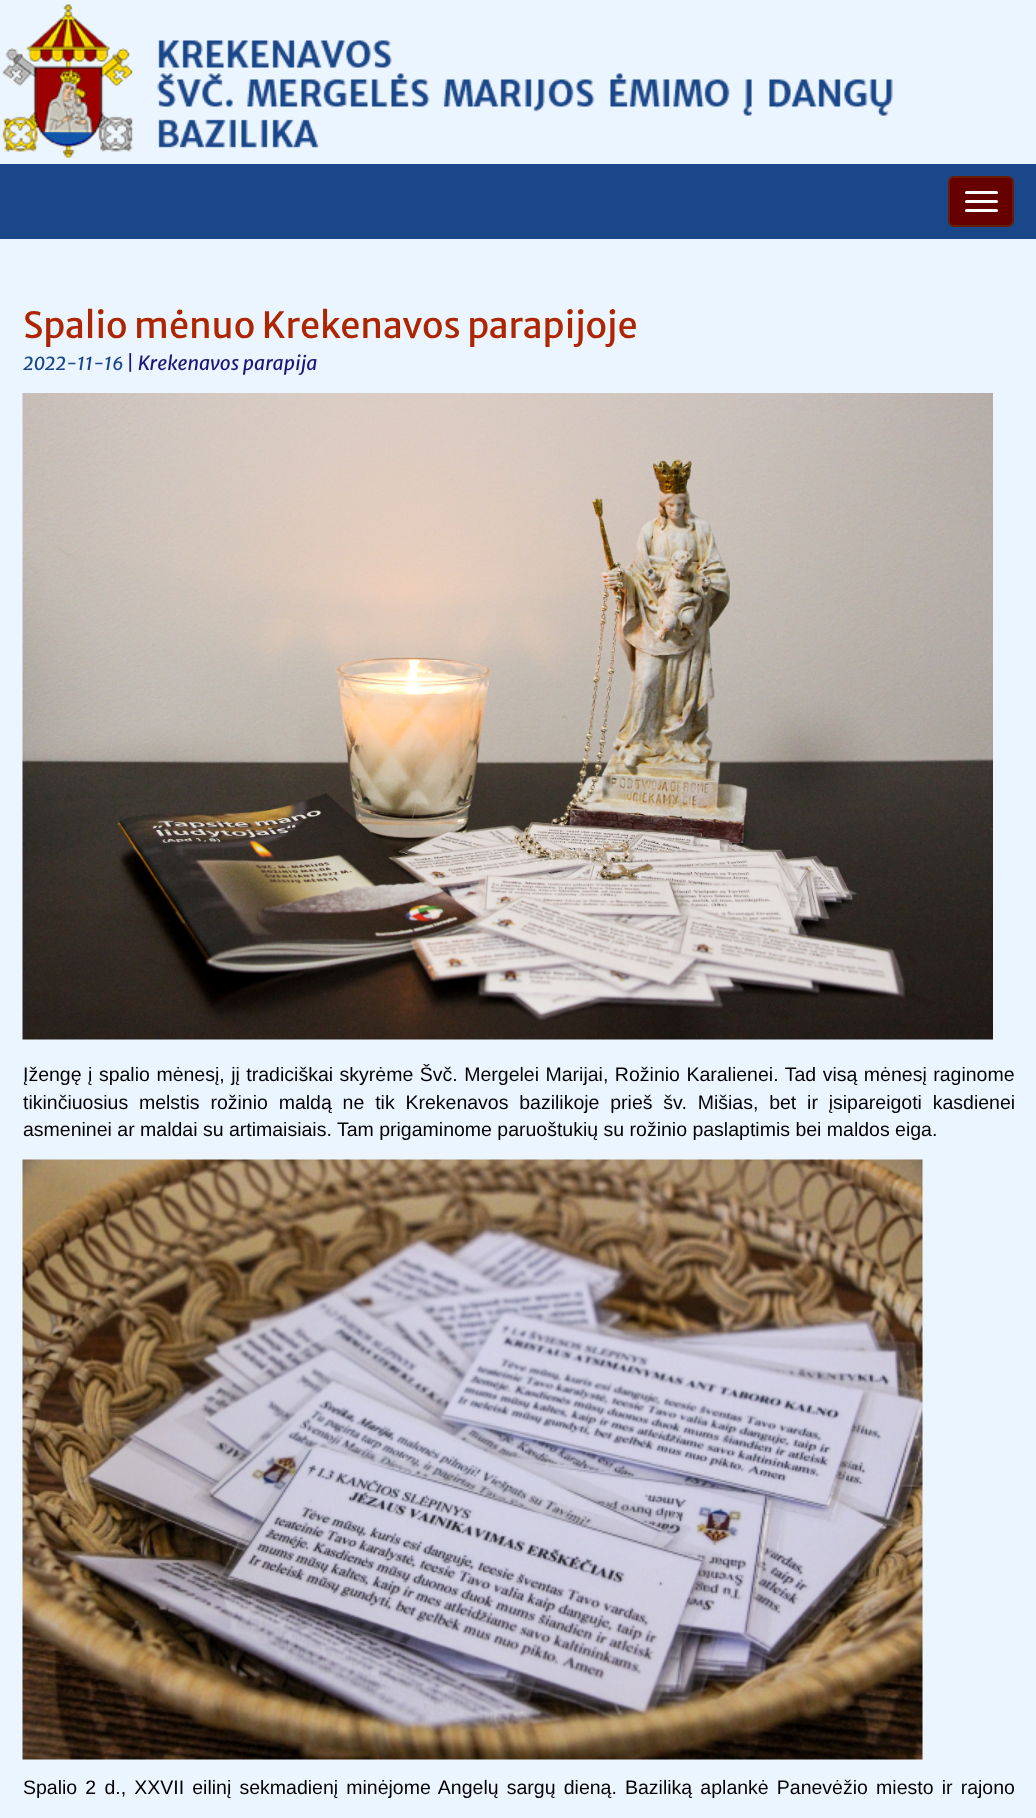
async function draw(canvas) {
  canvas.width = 1036
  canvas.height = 1818
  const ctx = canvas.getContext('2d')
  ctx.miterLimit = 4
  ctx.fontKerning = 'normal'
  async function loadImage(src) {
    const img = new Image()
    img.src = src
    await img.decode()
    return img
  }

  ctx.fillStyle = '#ebf5ff'
  ctx.fillRect(0, 0, 1036, 1818)
  ctx.fillStyle = '#1a4789'
  ctx.fillRect(0, 164, 1036, 75)
  ctx.drawImage(await loadImage('image0.png'), 2, 4, 891, 154)
  ctx.fillStyle = '#600'
  ctx.beginPath()
  ctx.roundRect(949, 177, 64, 49, 5)
  ctx.fill()
  ctx.strokeStyle = '#671d00'
  ctx.lineWidth = 2
  ctx.stroke()
  ctx.fillStyle = '#fff'
  ctx.beginPath()
  ctx.roundRect(965, 191, 33, 3, 1.5)
  ctx.fill()
  ctx.beginPath()
  ctx.roundRect(965, 200, 33, 3, 1.5)
  ctx.fill()
  ctx.beginPath()
  ctx.roundRect(965, 209, 33, 3, 1.5)
  ctx.fill()
  ctx.font = '36px Merriweather Sans'
  ctx.fillStyle = '#ad2601'
  ctx.fillText('Spalio mėnuo Krekenavos parapijoje', 23, 338)
  ctx.font = 'italic 18px Merriweather Sans'
  ctx.fillStyle = '#1a4789'
  ctx.fillText('2022-11-16', 23, 370)
  ctx.font = 'italic 19.5px Merriweather Sans'
  ctx.fillStyle = '#191879'
  ctx.fillText('| Krekenavos parapija', 126, 370)
  ctx.drawImage(await loadImage('image1.png'), 22, 393, 971, 647)
  ctx.wordSpacing = '1.1px'
  ctx.font = '19.5px Liberation Sans'
  ctx.fillStyle = '#000'
  ctx.fillText('Įžengę į spalio mėnesį, jį tradiciškai skyrėme Švč. Mergelei Marijai, Rožinio Karalienei. Tad visą mėnesį raginome', 23, 1081)
  ctx.wordSpacing = '5.4px'
  ctx.fillText('tikinčiuosius melstis rožinio maldą ne tik Krekenavos bazilikoje prieš šv. Mišias, bet ir įsipareigoti kasdienei', 23, 1109)
  ctx.wordSpacing = '0px'
  ctx.fillText('asmeninei ar maldai su artimaisiais. Tam prigaminome paruoštukių su rožinio paslaptimis bei maldos eiga.', 23, 1136)
  ctx.drawImage(await loadImage('image2.png'), 22, 1159, 901, 601)
  ctx.wordSpacing = '2.75px'
  ctx.fillText('Spalio 2 d., XXVII eilinį sekmadienį minėjome Angelų sargų dieną. Baziliką aplankė Panevėžio miesto ir rajono', 23, 1794)
}

draw(document.querySelector('canvas'))
